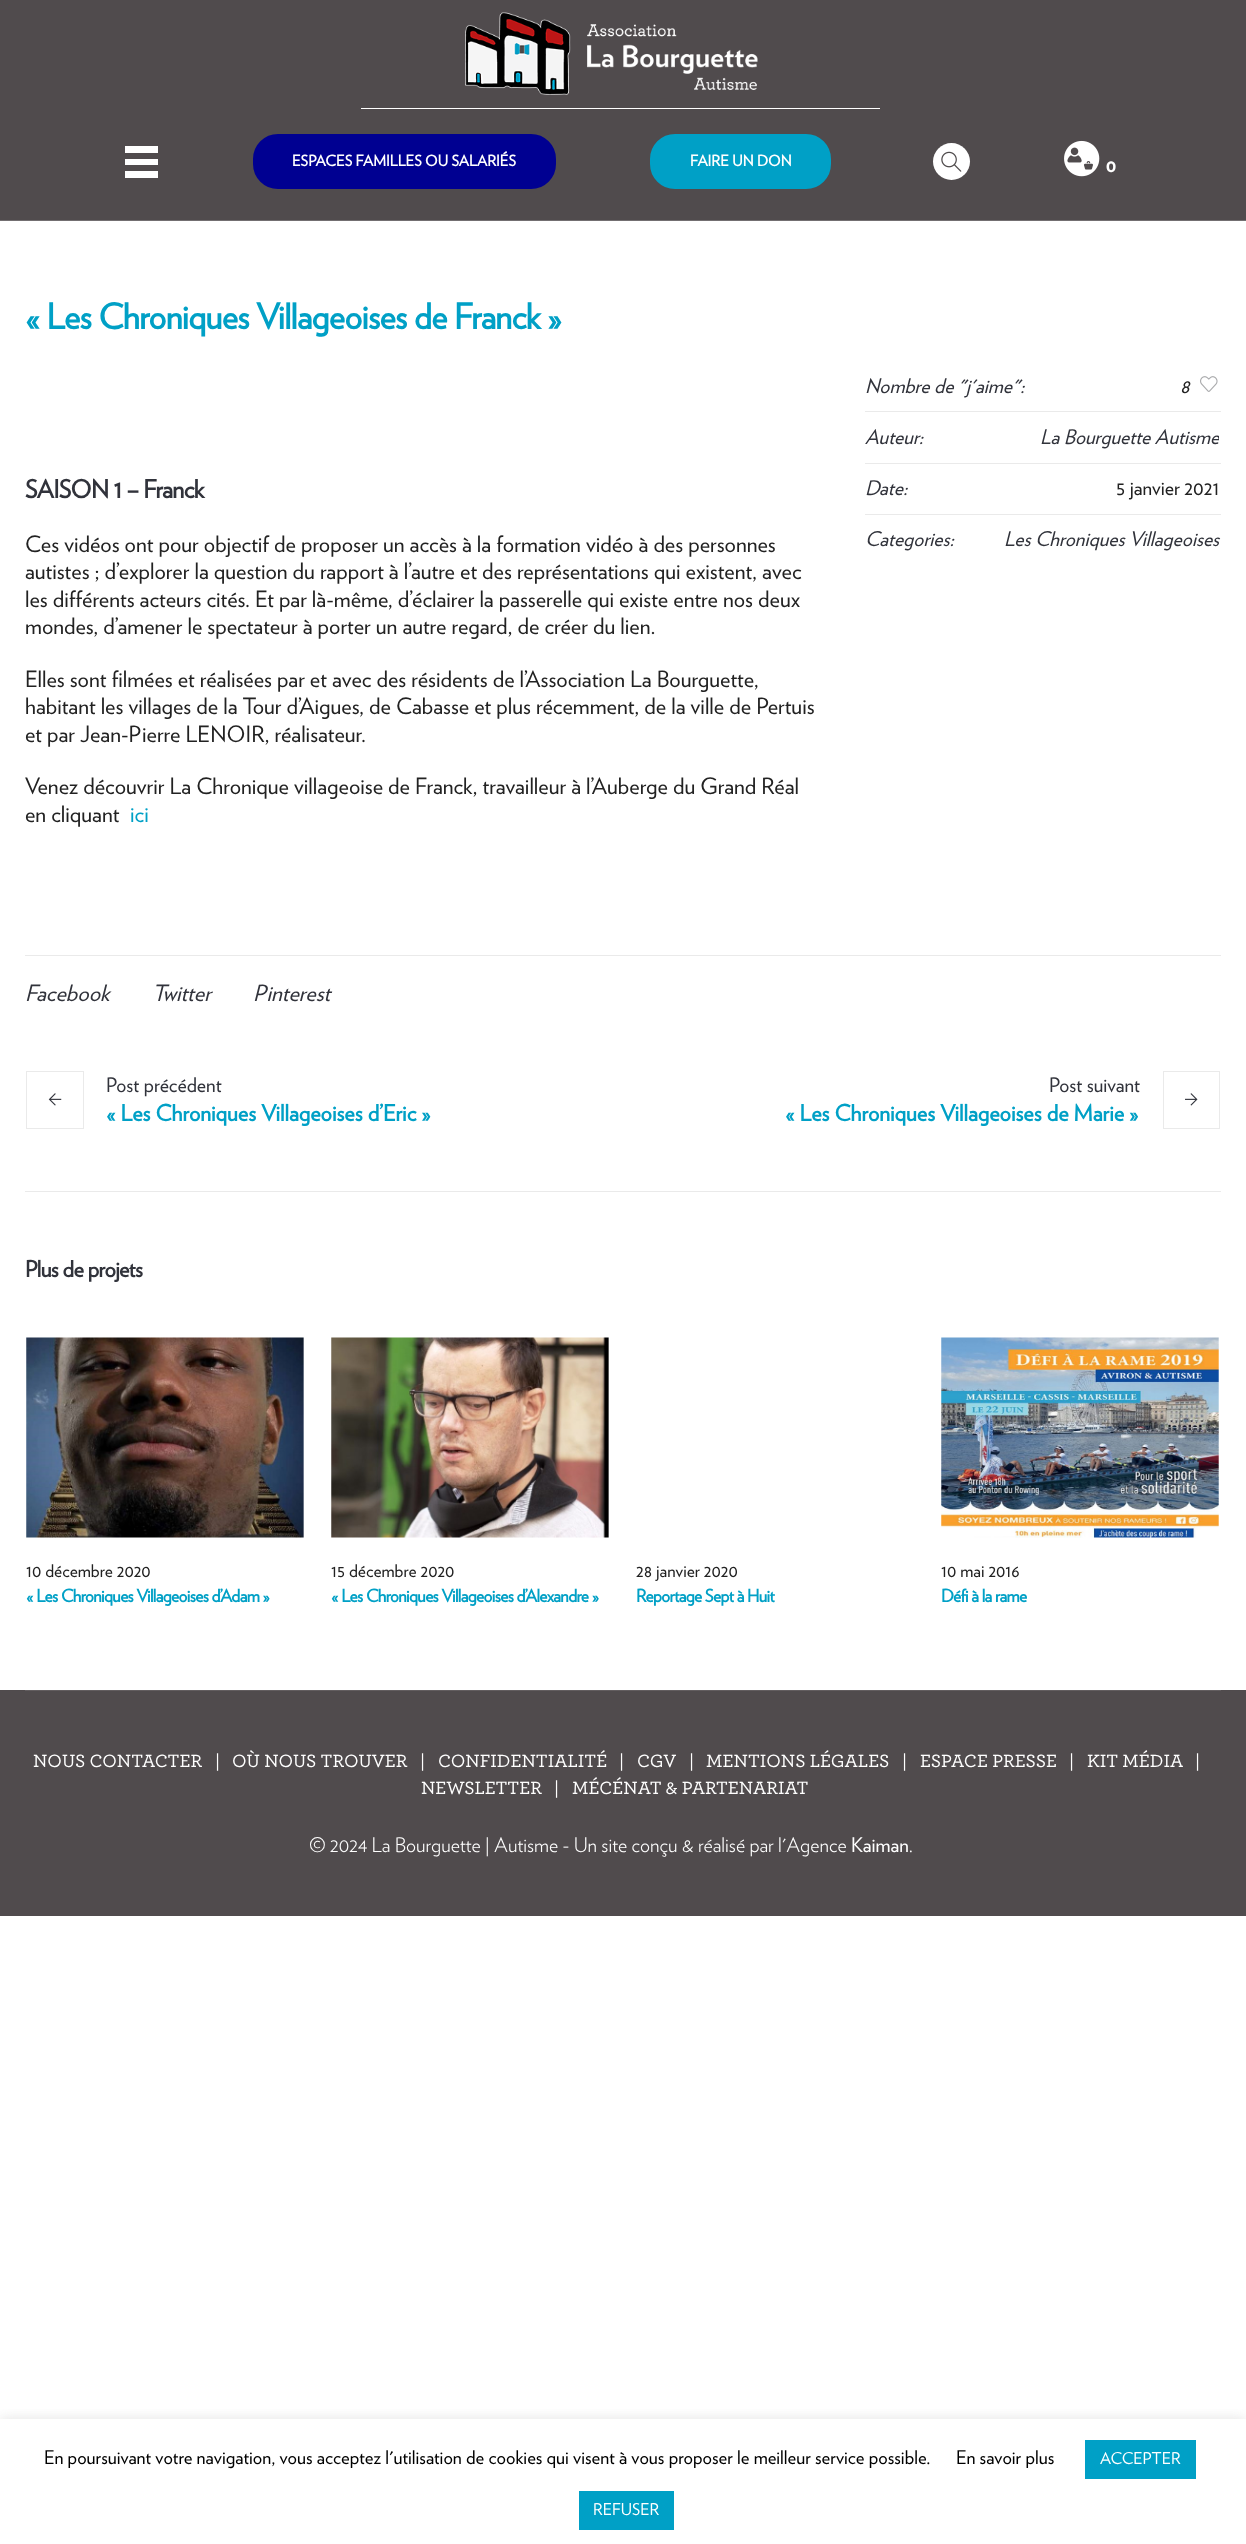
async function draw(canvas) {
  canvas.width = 1246
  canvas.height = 2544
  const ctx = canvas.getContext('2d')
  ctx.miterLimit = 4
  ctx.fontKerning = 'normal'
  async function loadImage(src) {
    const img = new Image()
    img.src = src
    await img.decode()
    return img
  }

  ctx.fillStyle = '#fff'
  ctx.fillRect(0, 0, 1246, 2544)
  ctx.fillStyle = '#504b4d'
  ctx.fillRect(0, 0, 1246, 220)
  ctx.fillStyle = '#736f71'
  ctx.fillRect(0, 220, 1246, 1)
  ctx.fillStyle = '#fff'
  ctx.fillRect(361, 108, 519, 1)
  ctx.drawImage(await loadImage('image0.png'), 465, 12, 293, 83)
  ctx.fillRect(125, 146, 33, 7)
  ctx.fillRect(125, 159, 33, 6)
  ctx.fillRect(125, 171, 33, 7)
  ctx.fillStyle = '#000091'
  ctx.beginPath()
  ctx.roundRect(254.5, 135.5, 300, 52, 23.5)
  ctx.fill()
  ctx.strokeStyle = '#000091'
  ctx.lineWidth = 3
  ctx.stroke()
  ctx.font = 'bold 15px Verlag'
  ctx.fillStyle = '#fff'
  ctx.fillText('ESPACES FAMILLES OU SALARIÉS', 292, 166)
  ctx.fillStyle = '#00a0c6'
  ctx.beginPath()
  ctx.roundRect(651.5, 135.5, 178, 52, 23.5)
  ctx.fill()
  ctx.strokeStyle = '#00a0c6'
  ctx.stroke()
  ctx.fillStyle = '#fff'
  ctx.fillText('FAIRE UN DON', 690, 166)
  ctx.beginPath()
  ctx.arc(951.5, 161.5, 18.5, 0, 2 * Math.PI)
  ctx.fill()
  ctx.drawImage(await loadImage('image1.png'), 941, 151, 21, 21)
  ctx.drawImage(await loadImage('image2.png'), 1064, 140, 36, 37)
  ctx.font = 'bold 15px Montserrat'
  ctx.fillText('0', 1106, 172)
  ctx.letterSpacing = '-0.6px'
  ctx.font = 'bold 35px Verlag'
  ctx.fillStyle = '#00a0c6'
  ctx.fillText('« Les Chroniques Villageoises de Franck »', 25, 329)
  ctx.font = 'bold 25px Verlag'
  ctx.fillStyle = '#31333b'
  ctx.fillText('SAISON 1 – Franck', 25, 498)
  ctx.letterSpacing = '0px'
  ctx.font = '22.5px Verlag'
  ctx.fillStyle = '#222'
  ctx.fillText('Ces vidéos ont pour objectif de proposer un accès à la formation vidéo à des personnes', 25, 552)
  ctx.fillText('autistes ; d’explorer la question du rapport à l’autre et des représentations qui existent, avec', 25, 579)
  ctx.fillText('les différents acteurs cités. Et par là-même, d’éclairer la passerelle qui existe entre nos deux', 25, 607)
  ctx.fillText('mondes, d’amener le spectateur à porter un autre regard, de créer du lien.', 25, 634)
  ctx.fillText('Elles sont filmées et réalisées par et avec des résidents de l’Association La Bourguette,', 25, 687)
  ctx.fillText('habitant les villages de la Tour d’Aigues, de Cabasse et plus récemment, de la ville de Pertuis', 25, 714)
  ctx.fillText('et par Jean-Pierre LENOIR, réalisateur.', 25, 742)
  ctx.fillText('Venez découvrir La Chronique villageoise de Franck, travailleur à l’Auberge du Grand Réal', 25, 794)
  ctx.fillText('en cliquant', 25, 822)
  ctx.fillStyle = '#00a0c6'
  ctx.fillText('ici', 130, 822)
  ctx.fillStyle = '#eaeaea'
  ctx.fillRect(865, 411, 356, 1)
  ctx.font = 'italic 20px Verlag'
  ctx.fillStyle = '#31333b'
  ctx.fillText('Nombre de "j\'aime":', 865, 393)
  ctx.fillStyle = '#222'
  ctx.fillText('8', 1180, 393)
  ctx.drawImage(await loadImage('image3.png'), 1200, 376, 18, 16)
  ctx.fillStyle = '#eaeaea'
  ctx.fillRect(865, 463, 356, 1)
  ctx.fillStyle = '#31333b'
  ctx.fillText('Auteur:', 865, 444)
  ctx.save()
  ctx.beginPath()
  ctx.rect(925, 424, 294, 27)
  ctx.clip()
  ctx.fillText('La Bourguette Autisme', 1040, 444)
  ctx.restore()
  ctx.fillStyle = '#eaeaea'
  ctx.fillRect(865, 514, 356, 1)
  ctx.fillStyle = '#31333b'
  ctx.fillText('Date:', 865, 495)
  ctx.font = '20px Verlag'
  ctx.fillStyle = '#222'
  ctx.fillText('5 janvier 2021', 1116, 495)
  ctx.font = 'italic 20px Verlag'
  ctx.fillStyle = '#31333b'
  ctx.fillText('Categories:', 865, 546)
  ctx.fillText('Les Chroniques Villageoises', 1004, 546)
  ctx.fillStyle = '#eaeaea'
  ctx.fillRect(25, 955, 1196, 1)
  ctx.font = 'italic 22.5px Verlag'
  ctx.fillStyle = '#31333b'
  ctx.fillText('Facebook', 25, 1001)
  ctx.fillText('Twitter', 152, 1001)
  ctx.fillText('Pinterest', 253, 1001)
  ctx.strokeStyle = '#eaeaea'
  ctx.lineWidth = 1
  ctx.strokeRect(26.5, 1071.5, 57, 57)
  ctx.drawImage(await loadImage('image4.png'), 48, 1093, 14, 13)
  ctx.font = '20px Verlag'
  ctx.fillText('Post précédent', 106, 1092)
  ctx.font = 'bold 22.5px Verlag'
  ctx.fillStyle = '#00a0c6'
  ctx.fillText('« Les Chroniques Villageoises d’Eric »', 106, 1121)
  ctx.font = '20px Verlag'
  ctx.fillStyle = '#31333b'
  ctx.fillText('Post suivant', 1049, 1092)
  ctx.strokeRect(1163.5, 1071.5, 56, 57)
  ctx.drawImage(await loadImage('image5.png'), 1185, 1093, 13, 13)
  ctx.font = 'bold 22.5px Verlag'
  ctx.fillStyle = '#00a0c6'
  ctx.fillText('« Les Chroniques Villageoises de Marie »', 785, 1121)
  ctx.fillStyle = '#eaeaea'
  ctx.fillRect(25, 1191, 1196, 1)
  ctx.letterSpacing = '-0.6px'
  ctx.fillStyle = '#31333b'
  ctx.fillText('Plus de projets', 25, 1277)
  ctx.drawImage(await loadImage('image6.png'), 26, 1337, 278, 201)
  ctx.letterSpacing = '0px'
  ctx.font = '17.5px Verlag'
  ctx.fillStyle = '#222'
  ctx.fillText('10 décembre 2020', 26, 1577)
  ctx.letterSpacing = '-0.6px'
  ctx.font = 'bold 17.5px Verlag'
  ctx.fillStyle = '#00a0c6'
  ctx.fillText('« Les Chroniques Villageoises d’Adam »', 26, 1602)
  ctx.drawImage(await loadImage('image7.png'), 331, 1337, 278, 201)
  ctx.letterSpacing = '0px'
  ctx.font = '17.5px Verlag'
  ctx.fillStyle = '#222'
  ctx.fillText('15 décembre 2020', 331, 1577)
  ctx.letterSpacing = '-0.6px'
  ctx.font = 'bold 17.5px Verlag'
  ctx.fillStyle = '#00a0c6'
  ctx.fillText('« Les Chroniques Villageoises d’Alexandre »', 331, 1602)
  ctx.letterSpacing = '0px'
  ctx.font = '17.5px Verlag'
  ctx.fillStyle = '#222'
  ctx.fillText('28 janvier 2020', 636, 1577)
  ctx.letterSpacing = '-0.6px'
  ctx.font = 'bold 17.5px Verlag'
  ctx.fillStyle = '#00a0c6'
  ctx.fillText('Reportage Sept à Huit', 636, 1602)
  ctx.drawImage(await loadImage('image8.png'), 941, 1337, 278, 201)
  ctx.letterSpacing = '0px'
  ctx.font = '17.5px Verlag'
  ctx.fillStyle = '#222'
  ctx.fillText('10 mai 2016', 941, 1577)
  ctx.letterSpacing = '-0.6px'
  ctx.font = 'bold 17.5px Verlag'
  ctx.fillStyle = '#00a0c6'
  ctx.fillText('Défi à la rame', 941, 1602)
  ctx.fillStyle = '#504b4d'
  ctx.fillRect(0, 1690, 1246, 226)
  ctx.fillStyle = '#625d5f'
  ctx.fillRect(25, 1690, 1196, 1)
  ctx.letterSpacing = '0px'
  ctx.font = '500 18.75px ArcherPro'
  ctx.fillStyle = '#fff'
  ctx.fillText('NOUS CONTACTER', 33, 1767)
  ctx.fillText('|', 215, 1767)
  ctx.fillText('OÙ NOUS TROUVER', 232, 1767)
  ctx.fillText('|', 420, 1767)
  ctx.fillText('CONFIDENTIALITÉ', 438, 1767)
  ctx.fillText('|', 619, 1767)
  ctx.fillText('CGV', 637, 1767)
  ctx.fillText('|', 689, 1767)
  ctx.fillText('MENTIONS LÉGALES', 706, 1767)
  ctx.fillText('|', 902, 1767)
  ctx.fillText('ESPACE PRESSE', 920, 1767)
  ctx.fillText('|', 1069, 1767)
  ctx.fillText('KIT MÉDIA', 1087, 1767)
  ctx.fillText('|', 1195, 1767)
  ctx.fillText('NEWSLETTER', 421, 1794)
  ctx.fillText('|', 554, 1794)
  ctx.fillText('MÉCÉNAT & PARTENARIAT', 572, 1794)
  ctx.font = '300 20px Verlag'
  ctx.fillText('© 2024 La Bourguette | Autisme - Un site conçu & réalisé par l\'Agence', 309, 1852)
  ctx.font = '20px Verlag'
  ctx.fillText('Kaiman', 851, 1852)
  ctx.font = '300 20px Verlag'
  ctx.fillText('.', 909, 1852)
  ctx.save()
  ctx.beginPath()
  ctx.rect(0, 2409, 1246, 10)
  ctx.clip()
  ctx.fillStyle = '#acabab4d'
  ctx.filter = 'blur(6px)'
  ctx.beginPath()
  ctx.rect(0, 2418, 1246, 126)
  ctx.fill()
  ctx.filter = 'none'
  ctx.restore()
  ctx.font = '18.75px Verlag'
  ctx.fillStyle = '#000'
  ctx.fillText('En poursuivant votre navigation, vous acceptez l\'utilisation de cookies qui visent à vous proposer le meilleur service possible.', 44, 2464)
  ctx.fillText('En savoir plus', 956, 2464)
  ctx.fillStyle = '#00a0c6'
  ctx.fillRect(1085, 2440, 111, 39)
  ctx.font = '16.25px Verlag'
  ctx.fillStyle = '#fff'
  ctx.fillText('ACCEPTER', 1100, 2464)
  ctx.fillStyle = '#00a0c6'
  ctx.fillRect(579, 2491, 95, 39)
  ctx.fillStyle = '#fff'
  ctx.fillText('REFUSER', 593, 2515)
}

draw(document.querySelector('canvas'))
